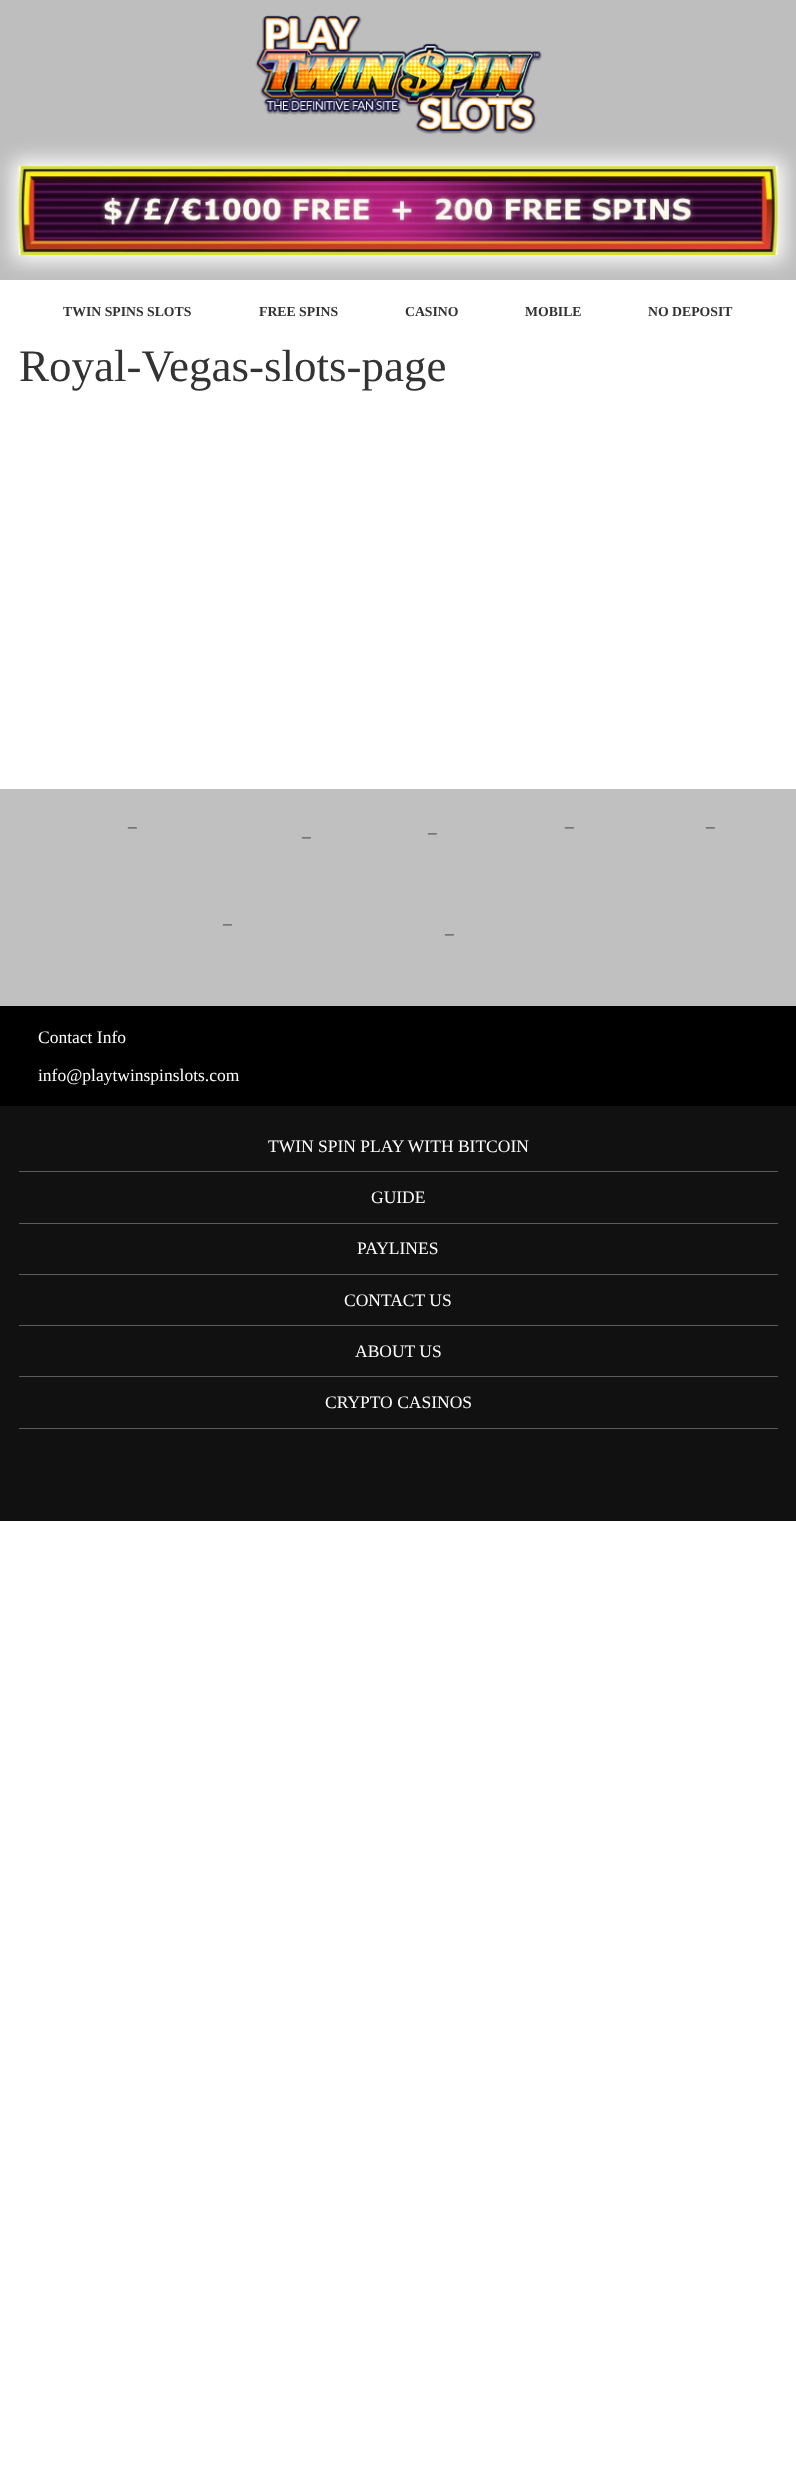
async function draw(canvas) {
  canvas.width = 796
  canvas.height = 2481
  const ctx = canvas.getContext('2d')
  ctx.miterLimit = 4
  ctx.fontKerning = 'normal'
  async function loadImage(src) {
    const img = new Image()
    img.src = src
    await img.decode()
    return img
  }

  ctx.fillStyle = '#fff'
  ctx.fillRect(0, 0, 796, 2481)
  ctx.fillStyle = '#bebebe'
  ctx.fillRect(0, 0, 796, 280)
  ctx.drawImage(await loadImage('image0.png'), 255, 15, 288, 120)
  ctx.fillStyle = '#fff'
  ctx.filter = 'blur(10px)'
  ctx.beginPath()
  ctx.rect(13, 160, 771, 101)
  ctx.fill()
  ctx.filter = 'none'
  ctx.drawImage(await loadImage('image1.png'), 18, 166, 760, 89)
  ctx.font = 'bold 13.75px Liberation Serif'
  ctx.fillStyle = '#333'
  ctx.fillText('TWIN SPINS SLOTS', 63, 316)
  ctx.fillText('FREE SPINS', 259, 316)
  ctx.fillText('CASINO', 405, 316)
  ctx.fillText('MOBILE', 525, 316)
  ctx.fillText('NO DEPOSIT', 648, 316)
  ctx.font = '45px Liberation Serif'
  ctx.fillText('Royal-Vegas-slots-page', 19, 381)
  ctx.fillStyle = '#c0c0c0'
  ctx.fillRect(0, 789, 796, 217)
  ctx.font = '17.5px Liberation Serif'
  ctx.fillStyle = '#333'
  ctx.fillText('–', 128, 832)
  ctx.fillText('–', 565, 832)
  ctx.fillText('–', 706, 832)
  ctx.fillText('–', 428, 838)
  ctx.fillText('–', 302, 842)
  ctx.fillText('–', 223, 929)
  ctx.fillText('–', 445, 939)
  ctx.fillStyle = '#000'
  ctx.fillRect(0, 1006, 796, 100)
  ctx.fillStyle = '#fff'
  ctx.fillText('Contact Info', 38, 1043)
  ctx.fillText('info@playtwinspinslots.com', 38, 1081)
  ctx.fillStyle = '#111'
  ctx.fillRect(0, 1106, 796, 415)
  ctx.fillStyle = '#5b5b5b'
  ctx.fillRect(19, 1171, 759, 1)
  ctx.fillStyle = '#fff'
  ctx.fillText('TWIN SPIN PLAY WITH BITCOIN', 268, 1152)
  ctx.fillStyle = '#5b5b5b'
  ctx.fillRect(19, 1223, 759, 1)
  ctx.fillStyle = '#fff'
  ctx.fillText('GUIDE', 371, 1203)
  ctx.fillStyle = '#5b5b5b'
  ctx.fillRect(19, 1274, 759, 1)
  ctx.fillStyle = '#fff'
  ctx.fillText('PAYLINES', 357, 1254)
  ctx.fillStyle = '#5b5b5b'
  ctx.fillRect(19, 1325, 759, 1)
  ctx.fillStyle = '#fff'
  ctx.fillText('CONTACT US', 344, 1306)
  ctx.fillStyle = '#5b5b5b'
  ctx.fillRect(19, 1376, 759, 1)
  ctx.fillStyle = '#fff'
  ctx.fillText('ABOUT US', 355, 1357)
  ctx.fillStyle = '#5b5b5b'
  ctx.fillRect(19, 1428, 759, 1)
  ctx.fillStyle = '#fff'
  ctx.fillText('CRYPTO CASINOS', 325, 1408)
}

draw(document.querySelector('canvas'))
